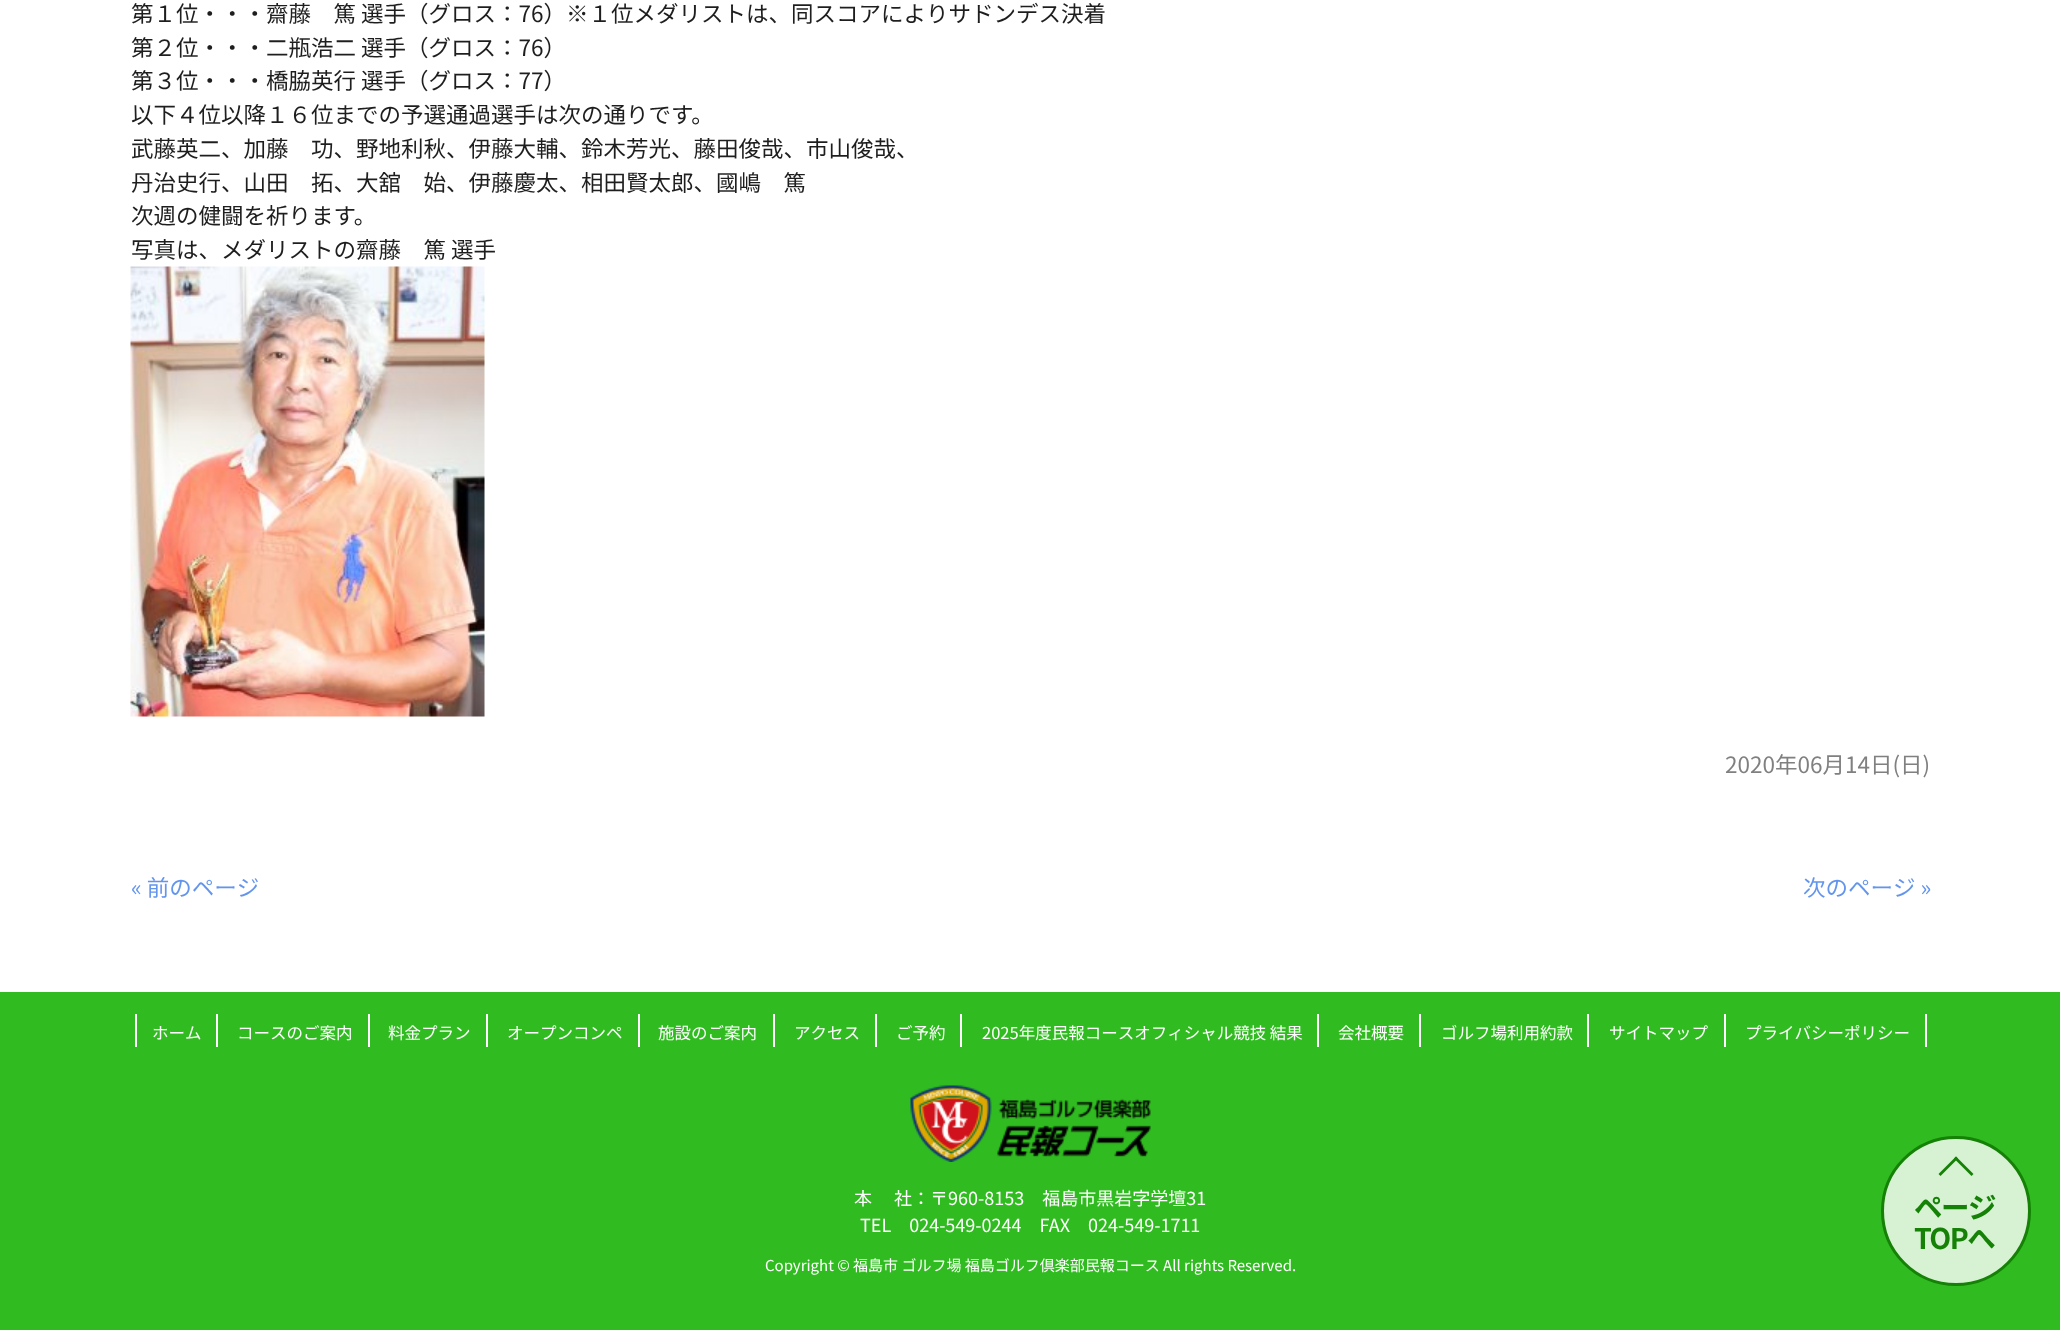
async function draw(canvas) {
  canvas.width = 2060
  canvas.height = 1330
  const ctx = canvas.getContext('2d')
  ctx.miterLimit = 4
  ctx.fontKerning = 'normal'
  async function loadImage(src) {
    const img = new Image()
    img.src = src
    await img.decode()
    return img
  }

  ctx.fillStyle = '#fff'
  ctx.fillRect(0, 0, 2060, 1330)
  ctx.font = '22.5px Noto Sans JP'
  ctx.fillStyle = '#1e1e1e'
  ctx.fillText('第１位・・・齋藤　篤 選手（グロス：76）※１位メダリストは、同スコアによりサドンデス決着', 131, 22)
  ctx.fillText('第２位・・・二瓶浩二 選手（グロス：76）', 131, 56)
  ctx.fillText('第３位・・・橋脇英行 選手（グロス：77）', 131, 89)
  ctx.fillText('以下４位以降１６位までの予選通過選手は次の通りです。', 131, 123)
  ctx.fillText('武藤英二、加藤　功、野地利秋、伊藤大輔、鈴木芳光、藤田俊哉、市山俊哉、', 131, 157)
  ctx.fillText('丹治史行、山田　拓、大舘　始、伊藤慶太、相田賢太郎、國嶋　篤', 131, 191)
  ctx.fillText('次週の健闘を祈ります。', 131, 224)
  ctx.fillText('写真は、メダリストの齋藤　篤 選手', 131, 258)
  ctx.drawImage(await loadImage('image0.png'), 130, 266, 355, 451)
  ctx.fillStyle = '#808080'
  ctx.fillText('2020年06月14日(日)', 1725, 773)
  ctx.fillStyle = '#6495ed'
  ctx.fillText('« 前のページ', 131, 896)
  ctx.fillText('次のページ »', 1803, 896)
  ctx.fillStyle = '#30bc20'
  ctx.fillRect(0, 992, 2060, 338)
  ctx.fillStyle = '#fff'
  ctx.fillRect(216, 1014, 2, 33)
  ctx.fillRect(135, 1014, 2, 33)
  ctx.font = '16.5px Noto Sans JP'
  ctx.fillText('ホーム', 152, 1039)
  ctx.fillRect(368, 1014, 2, 33)
  ctx.fillText('コースのご案内', 237, 1039)
  ctx.fillRect(486, 1014, 2, 33)
  ctx.fillText('料金プラン', 388, 1039)
  ctx.fillRect(638, 1014, 2, 33)
  ctx.fillText('オープンコンペ', 507, 1039)
  ctx.fillRect(773, 1014, 2, 33)
  ctx.fillText('施設のご案内', 658, 1039)
  ctx.fillRect(875, 1014, 2, 33)
  ctx.fillText('アクセス', 794, 1039)
  ctx.fillRect(960, 1014, 2, 33)
  ctx.fillText('ご予約', 896, 1039)
  ctx.fillRect(1317, 1014, 2, 33)
  ctx.fillText('2025年度民報コースオフィシャル競技 結果', 982, 1039)
  ctx.fillRect(1419, 1014, 2, 33)
  ctx.fillText('会社概要', 1338, 1039)
  ctx.fillRect(1587, 1014, 2, 33)
  ctx.fillText('ゴルフ場利用約款', 1441, 1039)
  ctx.fillRect(1724, 1014, 2, 33)
  ctx.fillText('サイトマップ', 1609, 1039)
  ctx.fillRect(1925, 1014, 2, 33)
  ctx.fillText('プライバシーポリシー', 1745, 1039)
  ctx.drawImage(await loadImage('image1.png'), 910, 1085, 241, 77)
  ctx.font = '18px Noto Sans JP'
  ctx.fillText('本', 854, 1205)
  ctx.fillText('社：〒960-8153　福島市黒岩字学壇31', 894, 1205)
  ctx.fillText('TEL　024-549-0244　FAX　024-549-1711', 860, 1232)
  ctx.fillStyle = '#d6f2d2'
  ctx.beginPath()
  ctx.arc(1956, 1211, 73.5, 0, 2 * Math.PI)
  ctx.fill()
  ctx.strokeStyle = '#158106'
  ctx.lineWidth = 3
  ctx.stroke()
  ctx.fillStyle = '#158106'
  ctx.beginPath()
  ctx.moveTo(1938.5, 1174)
  ctx.lineTo(1956, 1156.5)
  ctx.lineTo(1958, 1158.5)
  ctx.lineTo(1940.5, 1176)
  ctx.closePath()
  ctx.fill()
  ctx.beginPath()
  ctx.moveTo(1954, 1158.5)
  ctx.lineTo(1956, 1156.5)
  ctx.lineTo(1973.5, 1174)
  ctx.lineTo(1971.5, 1176)
  ctx.closePath()
  ctx.fill()
  ctx.letterSpacing = '-1.5px'
  ctx.font = 'bold 28.5px Noto Sans JP'
  ctx.fillText('ページ', 1914, 1218)
  ctx.fillText('TOPへ', 1914, 1249)
  ctx.letterSpacing = '0px'
  ctx.font = '15px Noto Sans JP'
  ctx.fillStyle = '#fff'
  ctx.fillText('Copyright © 福島市 ゴルフ場 福島ゴルフ倶楽部民報コース All rights Reserved.', 765, 1271)
}

draw(document.querySelector('canvas'))
